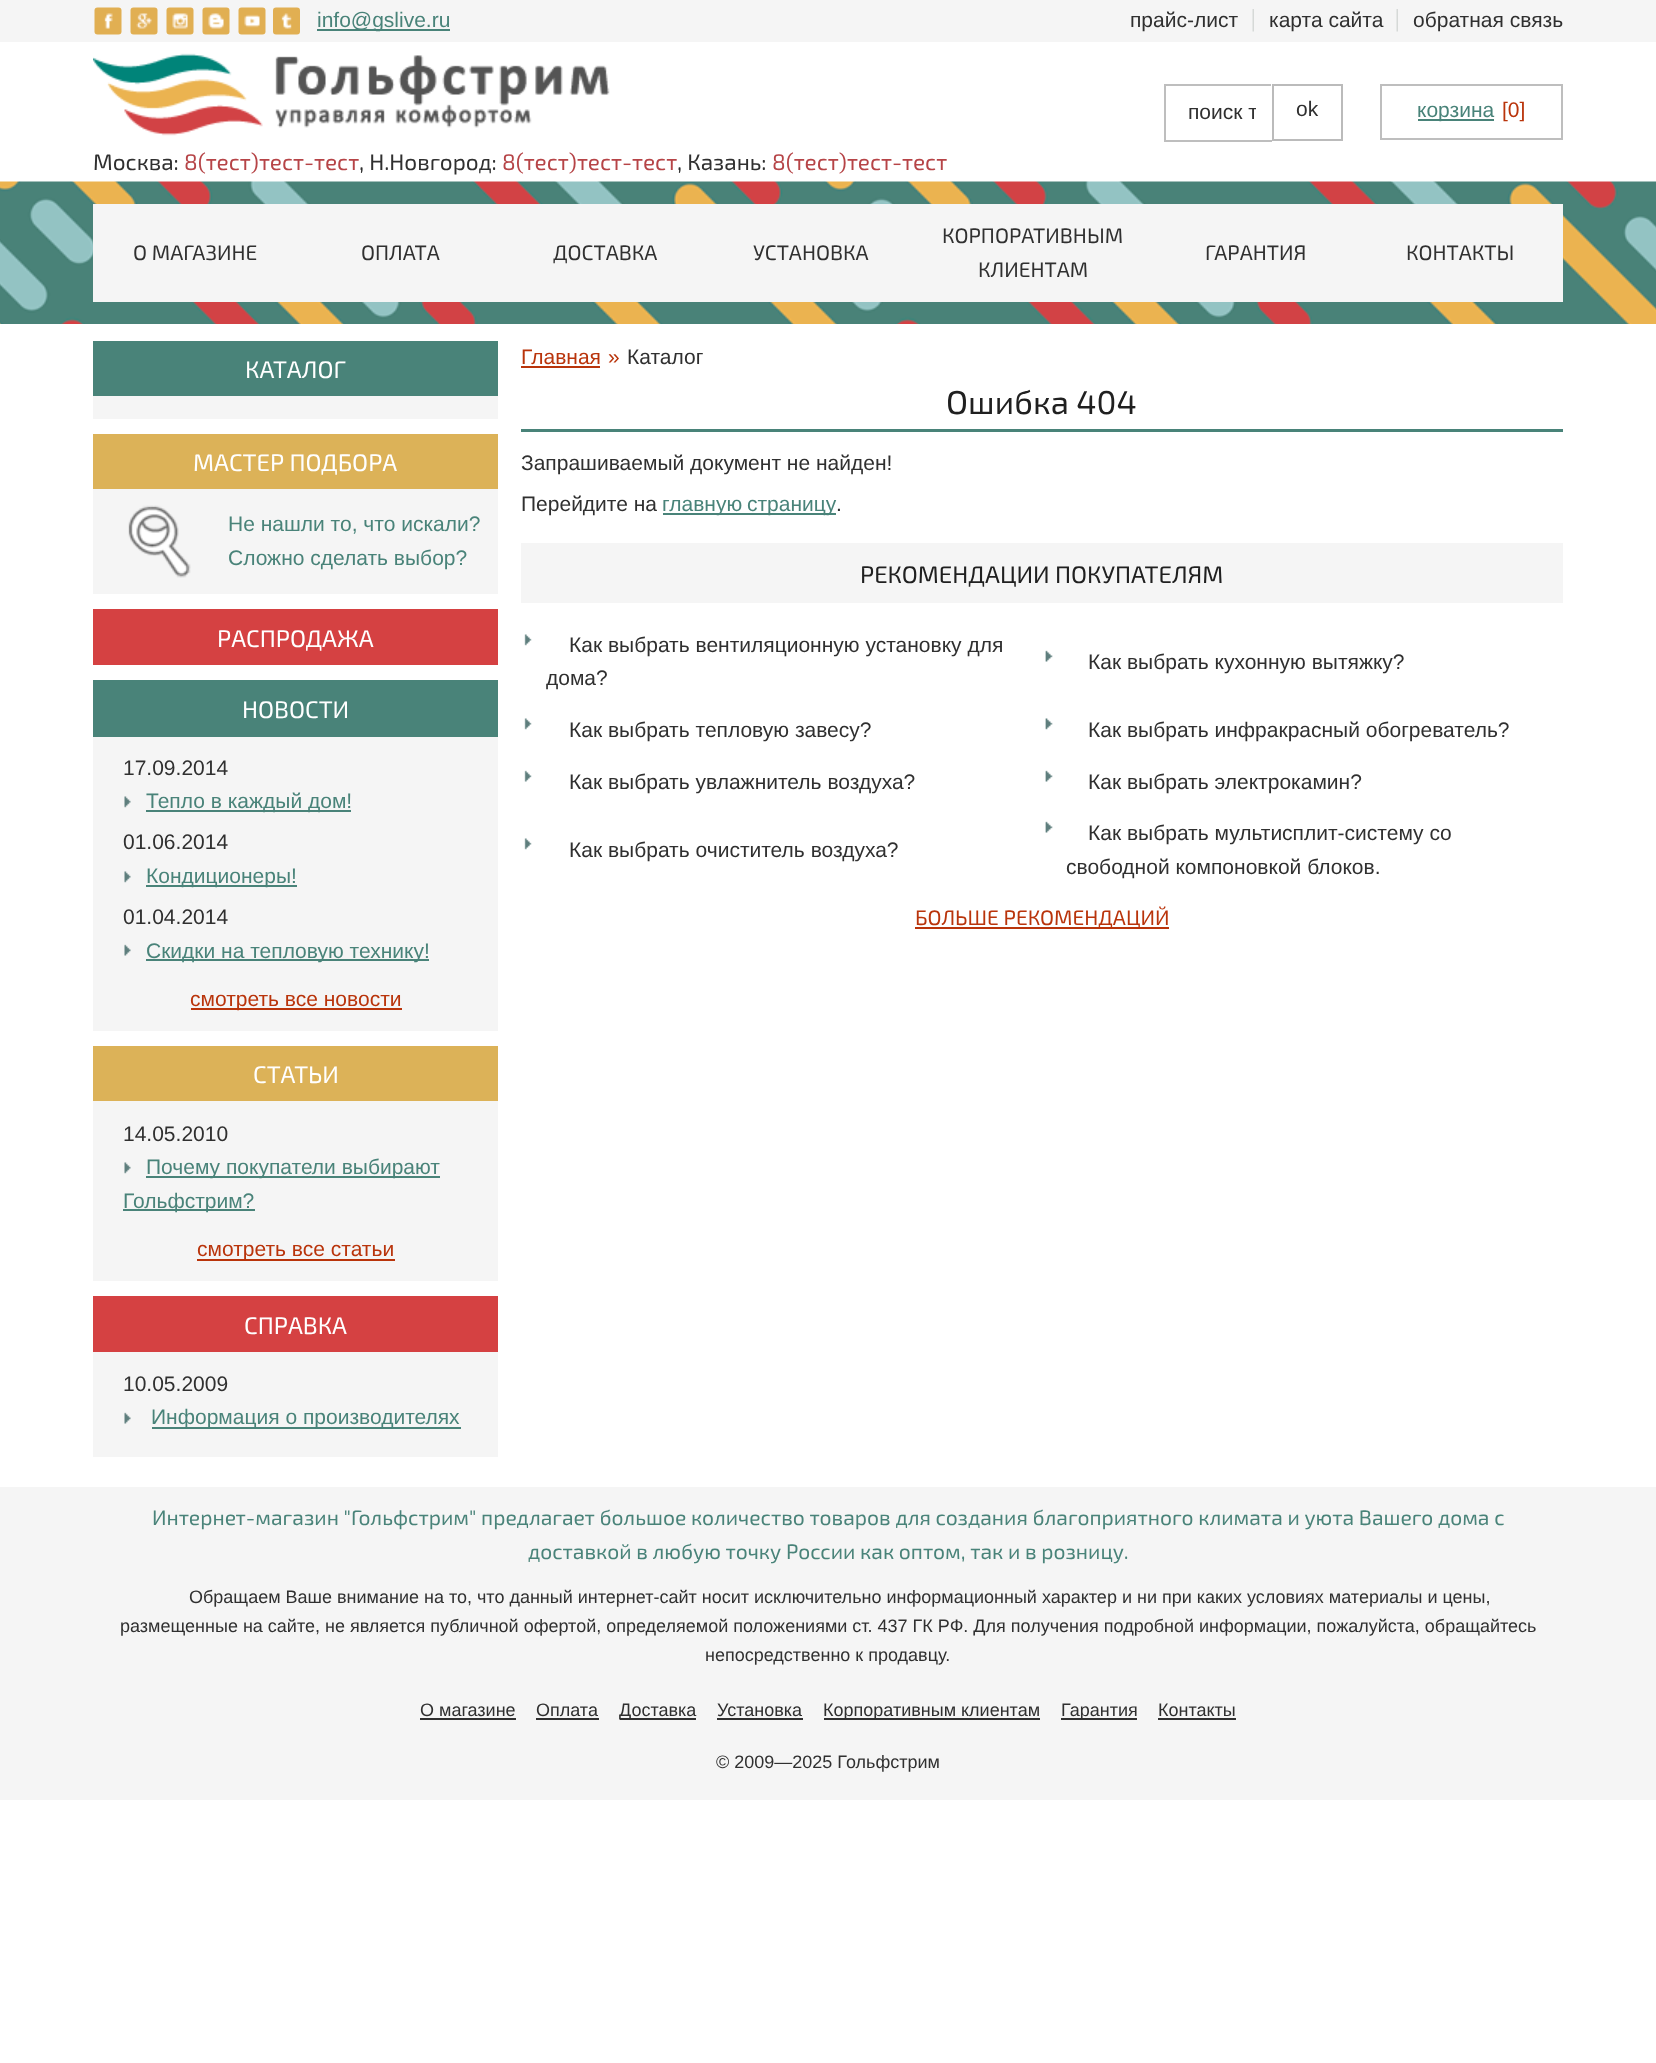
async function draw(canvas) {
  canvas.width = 1656
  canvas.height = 2063
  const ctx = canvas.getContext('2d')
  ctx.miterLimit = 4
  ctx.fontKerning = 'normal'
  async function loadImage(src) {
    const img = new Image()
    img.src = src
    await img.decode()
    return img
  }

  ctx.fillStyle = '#fff'
  ctx.fillRect(0, 0, 1656, 2063)
  ctx.fillStyle = '#f5f5f5'
  ctx.fillRect(0, 0, 1656, 42)
  ctx.drawImage(await loadImage('image0.png'), 94, 7, 28, 28)
  ctx.drawImage(await loadImage('image1.png'), 130, 7, 28, 28)
  ctx.drawImage(await loadImage('image2.png'), 166, 7, 28, 28)
  ctx.drawImage(await loadImage('image3.png'), 202, 7, 28, 28)
  ctx.drawImage(await loadImage('image4.png'), 238, 7, 28, 28)
  ctx.drawImage(await loadImage('image5.png'), 273, 7, 27, 28)
  ctx.fillStyle = '#498379'
  ctx.fillRect(317, 29, 133, 2)
  ctx.font = '21px Liberation Sans'
  ctx.fillText('info@gslive.ru', 317, 27)
  ctx.drawImage(await loadImage('image6.png'), 1252, 9, 2, 23)
  ctx.fillStyle = '#303030'
  ctx.fillText('прайс-лист', 1130, 27)
  ctx.drawImage(await loadImage('image6.png'), 1396, 9, 2, 23)
  ctx.fillText('карта сайта', 1269, 27)
  ctx.fillText('обратная связь', 1413, 27)
  ctx.fillStyle = '#bebebe'
  ctx.fillRect(1164, 84, 108, 2)
  ctx.fillStyle = '#fff'
  ctx.fillRect(1271, 84, 1, 2)
  ctx.fillStyle = '#bebebe'
  ctx.fillRect(1164, 140, 108, 2)
  ctx.fillRect(1164, 84, 2, 57)
  ctx.save()
  ctx.beginPath()
  ctx.rect(1181, 101, 75, 24)
  ctx.clip()
  ctx.fillStyle = '#303030'
  ctx.fillText('поиск т', 1188, 119)
  ctx.restore()
  ctx.strokeStyle = '#bbb'
  ctx.lineWidth = 2
  ctx.strokeRect(1273, 85, 69, 55)
  ctx.fillStyle = '#303030'
  ctx.fillText('ok', 1296, 116)
  ctx.strokeStyle = '#bebebe'
  ctx.strokeRect(1381, 85, 181, 54)
  ctx.fillStyle = '#498379'
  ctx.fillRect(1418, 119, 76, 2)
  ctx.fillText('корзина', 1417, 117)
  ctx.fillStyle = '#b9340b'
  ctx.fillText('[0]', 1502, 117)
  ctx.drawImage(await loadImage('image7.png'), 93, 53, 517, 83)
  ctx.font = '22.5px "Exo 2"'
  ctx.fillStyle = '#303030'
  ctx.fillText('Москва:', 93, 170)
  ctx.fillStyle = '#b64447'
  ctx.fillText('8(тест)тест-тест', 184, 170)
  ctx.fillStyle = '#303030'
  ctx.fillText(', Н.Новгород:', 359, 170)
  ctx.fillStyle = '#b64447'
  ctx.fillText('8(тест)тест-тест', 502, 170)
  ctx.fillStyle = '#303030'
  ctx.fillText(', Казань:', 677, 170)
  ctx.fillStyle = '#b64447'
  ctx.fillText('8(тест)тест-тест', 772, 170)
  ctx.drawImage(await loadImage('image8.png'), 0, 181, 1656, 143)
  ctx.fillStyle = '#f5f5f5'
  ctx.fillRect(93, 204, 1470, 98)
  ctx.font = '21px "Exo 2"'
  ctx.fillStyle = '#303030'
  ctx.fillText('О МАГАЗИНЕ', 133, 260)
  ctx.fillText('ОПЛАТА', 361, 260)
  ctx.fillText('ДОСТАВКА', 553, 260)
  ctx.fillText('УСТАНОВКА', 753, 260)
  ctx.fillText('КОРПОРАТИВНЫМ', 942, 243)
  ctx.fillText('КЛИЕНТАМ', 978, 277)
  ctx.fillText('ГАРАНТИЯ', 1205, 260)
  ctx.fillText('КОНТАКТЫ', 1406, 260)
  ctx.fillStyle = '#498379'
  ctx.fillRect(93, 341, 405, 55)
  ctx.font = '24px "Exo 2"'
  ctx.fillStyle = '#fff'
  ctx.fillText('КАТАЛОГ', 245, 378)
  ctx.fillStyle = '#f5f5f5'
  ctx.fillRect(93, 396, 405, 23)
  ctx.fillStyle = '#dcb258'
  ctx.fillRect(93, 434, 405, 55)
  ctx.fillStyle = '#fff'
  ctx.fillText('МАСТЕР ПОДБОРА', 193, 471)
  ctx.fillStyle = '#f5f5f5'
  ctx.fillRect(93, 489, 405, 105)
  ctx.drawImage(await loadImage('image9.png'), 128, 505, 63, 73)
  ctx.font = '21px Liberation Sans'
  ctx.fillStyle = '#498379'
  ctx.fillText('Не нашли то, что искали?', 228, 531)
  ctx.fillText('Сложно сделать выбор?', 228, 565)
  ctx.fillStyle = '#d54142'
  ctx.fillRect(93, 609, 405, 56)
  ctx.font = '24px "Exo 2"'
  ctx.fillStyle = '#fff'
  ctx.fillText('РАСПРОДАЖА', 217, 647)
  ctx.fillStyle = '#498379'
  ctx.fillRect(93, 680, 405, 57)
  ctx.fillStyle = '#fff'
  ctx.fillText('НОВОСТИ', 242, 718)
  ctx.fillStyle = '#f5f5f5'
  ctx.fillRect(93, 737, 405, 294)
  ctx.font = '21px Liberation Sans'
  ctx.fillStyle = '#303030'
  ctx.fillText('17.09.2014', 123, 775)
  ctx.drawImage(await loadImage('image10.png'), 124, 796, 7, 12)
  ctx.fillStyle = '#498379'
  ctx.fillRect(146, 810, 205, 2)
  ctx.fillText('Тепло в каждый дом!', 146, 808)
  ctx.fillStyle = '#303030'
  ctx.fillText('01.06.2014', 123, 849)
  ctx.drawImage(await loadImage('image10.png'), 124, 871, 7, 12)
  ctx.fillStyle = '#498379'
  ctx.fillRect(146, 885, 151, 2)
  ctx.fillText('Кондиционеры!', 146, 883)
  ctx.fillStyle = '#303030'
  ctx.fillText('01.04.2014', 123, 924)
  ctx.drawImage(await loadImage('image11.png'), 124, 944, 7, 12)
  ctx.fillStyle = '#498379'
  ctx.fillRect(146, 959, 283, 2)
  ctx.fillText('Скидки на тепловую технику!', 146, 958)
  ctx.fillStyle = '#b9340b'
  ctx.fillRect(191, 1008, 211, 2)
  ctx.fillText('смотреть все новости', 190, 1006)
  ctx.fillStyle = '#dcb258'
  ctx.fillRect(93, 1046, 405, 55)
  ctx.font = '24px "Exo 2"'
  ctx.fillStyle = '#fff'
  ctx.fillText('СТАТЬИ', 253, 1083)
  ctx.fillStyle = '#f5f5f5'
  ctx.fillRect(93, 1101, 405, 180)
  ctx.font = '21px Liberation Sans'
  ctx.fillStyle = '#303030'
  ctx.fillText('14.05.2010', 123, 1141)
  ctx.drawImage(await loadImage('image10.png'), 124, 1162, 7, 12)
  ctx.fillStyle = '#498379'
  ctx.fillRect(146, 1176, 294, 2)
  ctx.fillText('Почему покупатели выбирают', 146, 1174)
  ctx.fillRect(123, 1209, 132, 2)
  ctx.fillText('Гольфстрим?', 123, 1208)
  ctx.fillStyle = '#b9340b'
  ctx.fillRect(197, 1259, 198, 2)
  ctx.fillText('смотреть все статьи', 197, 1256)
  ctx.fillStyle = '#d54142'
  ctx.fillRect(93, 1296, 405, 56)
  ctx.font = '24px "Exo 2"'
  ctx.fillStyle = '#fff'
  ctx.fillText('СПРАВКА', 244, 1334)
  ctx.fillStyle = '#f5f5f5'
  ctx.fillRect(93, 1352, 405, 105)
  ctx.font = '21px Liberation Sans'
  ctx.fillStyle = '#303030'
  ctx.fillText('10.05.2009', 123, 1391)
  ctx.drawImage(await loadImage('image11.png'), 124, 1412, 7, 12)
  ctx.fillStyle = '#498379'
  ctx.fillRect(152, 1427, 309, 2)
  ctx.fillText('Информация о производителях', 151, 1424)
  ctx.fillStyle = '#b9340b'
  ctx.fillText('Главная', 521, 364)
  ctx.fillRect(521, 366, 79, 2)
  ctx.fillText('»', 608, 364)
  ctx.fillStyle = '#303030'
  ctx.fillText('Каталог', 627, 364)
  ctx.fillStyle = '#498379'
  ctx.fillRect(521, 429, 1042, 3)
  ctx.font = '33px "Exo 2"'
  ctx.fillStyle = '#202020'
  ctx.fillText('Ошибка 404', 946, 414)
  ctx.font = '21px Liberation Sans'
  ctx.fillStyle = '#303030'
  ctx.fillText('Запрашиваемый документ не найден!', 521, 470)
  ctx.fillText('Перейдите на', 521, 511)
  ctx.fillStyle = '#498379'
  ctx.fillRect(663, 513, 173, 2)
  ctx.wordSpacing = '-1px'
  ctx.fillText('главную страницу', 662, 511)
  ctx.wordSpacing = '0px'
  ctx.fillStyle = '#303030'
  ctx.fillText('.', 836, 511)
  ctx.fillStyle = '#f5f5f5'
  ctx.fillRect(521, 543, 1042, 60)
  ctx.font = '24px "Exo 2"'
  ctx.fillStyle = '#202020'
  ctx.fillText('РЕКОМЕНДАЦИИ ПОКУПАТЕЛЯМ', 860, 583)
  ctx.drawImage(await loadImage('image12.png'), 524, 634, 8, 12)
  ctx.font = '21px Liberation Sans'
  ctx.fillStyle = '#303030'
  ctx.fillText('Как выбрать вентиляционную установку для', 569, 652)
  ctx.fillText('дома?', 546, 685)
  ctx.drawImage(await loadImage('image13.png'), 1045, 650, 8, 12)
  ctx.fillText('Как выбрать кухонную вытяжку?', 1088, 669)
  ctx.drawImage(await loadImage('image12.png'), 524, 718, 8, 12)
  ctx.fillText('Как выбрать тепловую завесу?', 569, 737)
  ctx.drawImage(await loadImage('image14.png'), 1045, 718, 8, 12)
  ctx.fillText('Как выбрать инфракрасный обогреватель?', 1088, 737)
  ctx.drawImage(await loadImage('image15.png'), 524, 770, 8, 12)
  ctx.fillText('Как выбрать увлажнитель воздуха?', 569, 789)
  ctx.drawImage(await loadImage('image13.png'), 1045, 770, 8, 12)
  ctx.fillText('Как выбрать электрокамин?', 1088, 789)
  ctx.drawImage(await loadImage('image12.png'), 524, 838, 8, 12)
  ctx.fillText('Как выбрать очиститель воздуха?', 569, 857)
  ctx.drawImage(await loadImage('image13.png'), 1045, 821, 8, 12)
  ctx.fillText('Как выбрать мультисплит-систему со', 1088, 840)
  ctx.fillText('свободной компоновкой блоков.', 1066, 874)
  ctx.fillStyle = '#b9340b'
  ctx.fillRect(915, 927, 254, 2)
  ctx.font = '21px "Exo 2"'
  ctx.fillText('БОЛЬШЕ РЕКОМЕНДАЦИЙ', 915, 925)
  ctx.fillStyle = '#f5f5f5'
  ctx.fillRect(0, 1487, 1656, 313)
  ctx.fillStyle = '#498379'
  ctx.fillText('Интернет-магазин "Гольфстрим" предлагает большое количество товаров для создания благоприятного климата и уюта Вашего дома c', 152, 1525)
  ctx.fillText('доставкой в любую точку России как оптом, так и в розницу.', 528, 1559)
  ctx.font = '18px Liberation Sans'
  ctx.fillStyle = '#303030'
  ctx.fillText('Обращаем Ваше внимание на то, что данный интернет-сайт носит исключительно информационный характер и ни при каких условиях материалы и цены,', 189, 1603)
  ctx.fillText('размещенные на сайте, не является публичной офертой, определяемой положениями ст. 437 ГК РФ. Для получения подробной информации, пожалуйста, обращайтесь', 120, 1632)
  ctx.fillText('непосредственно к продавцу.', 705, 1661)
  ctx.fillText('О магазине', 420, 1716)
  ctx.fillRect(420, 1718, 96, 2)
  ctx.fillText('Оплата', 536, 1716)
  ctx.fillRect(536, 1718, 63, 2)
  ctx.fillRect(620, 1718, 76, 2)
  ctx.fillText('Доставка', 619, 1716)
  ctx.fillText('Установка', 717, 1716)
  ctx.fillRect(717, 1718, 86, 2)
  ctx.fillRect(824, 1718, 216, 2)
  ctx.fillText('Корпоративным клиентам', 823, 1716)
  ctx.fillRect(1061, 1718, 76, 2)
  ctx.fillText('Гарантия', 1061, 1716)
  ctx.fillText('Контакты', 1158, 1716)
  ctx.fillRect(1158, 1718, 78, 2)
  ctx.fillText('© 2009—2025 Гольфстрим', 716, 1768)
}

draw(document.querySelector('canvas'))
